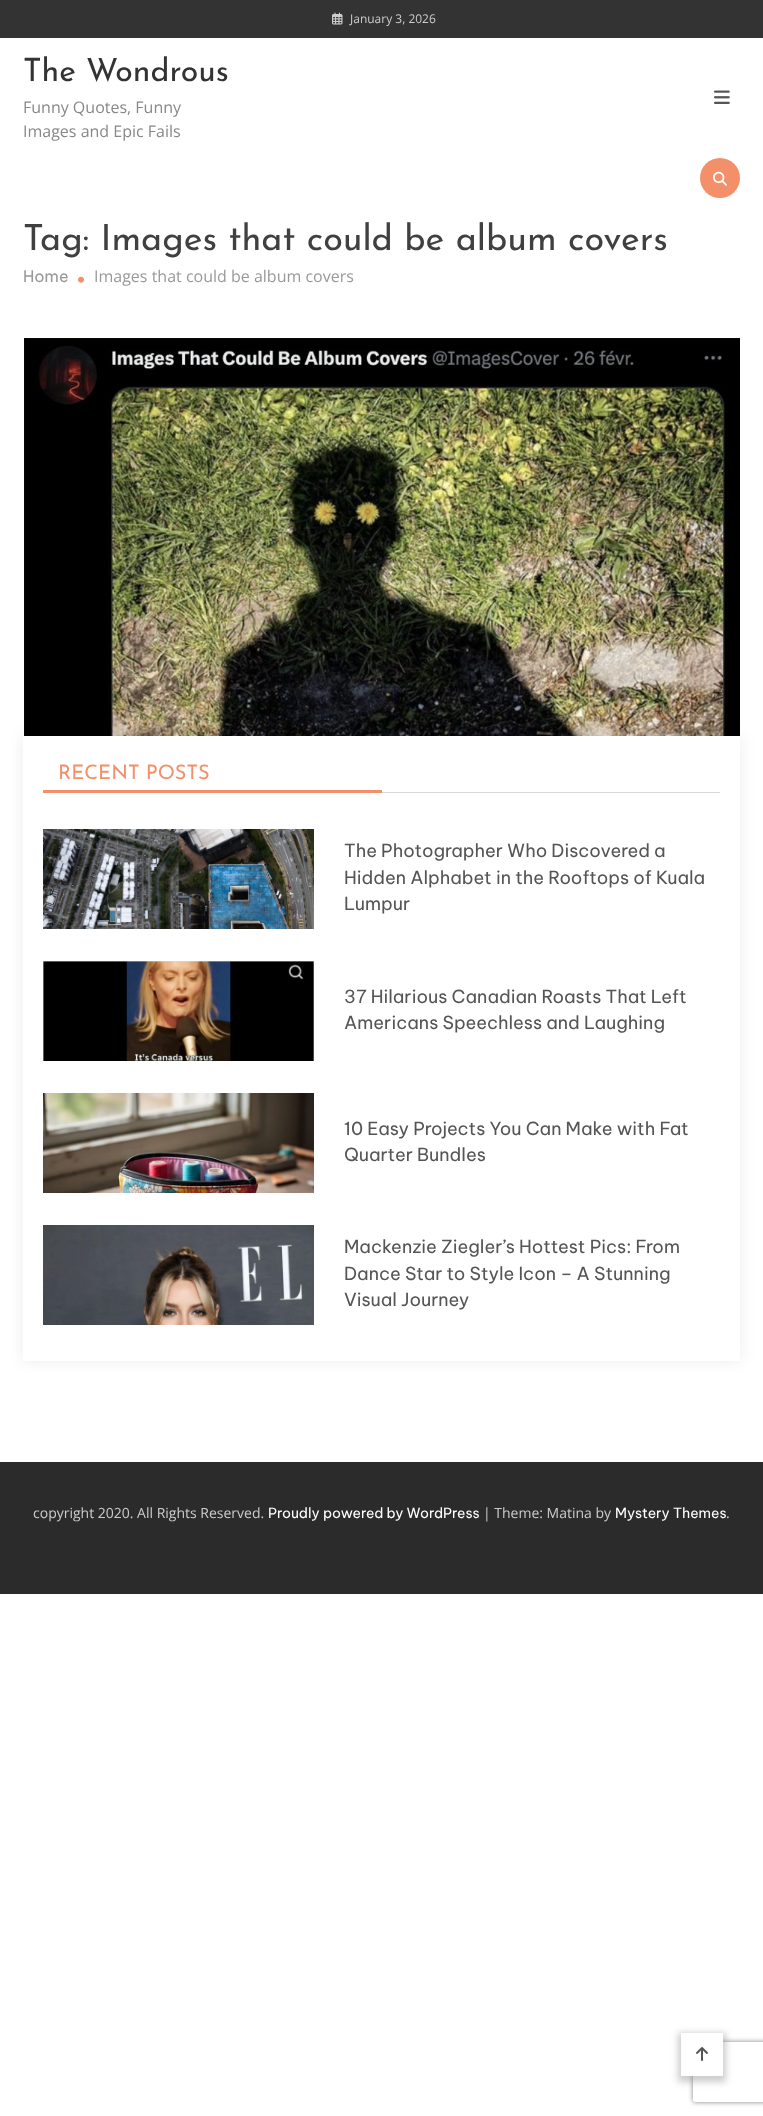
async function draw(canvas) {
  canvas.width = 763
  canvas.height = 2116
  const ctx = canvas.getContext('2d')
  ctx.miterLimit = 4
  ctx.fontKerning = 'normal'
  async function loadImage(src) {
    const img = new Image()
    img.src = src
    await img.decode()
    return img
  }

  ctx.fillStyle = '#fff'
  ctx.fillRect(0, 0, 763, 2116)
  ctx.fillStyle = '#333'
  ctx.fillRect(0, 0, 763, 38)
  ctx.drawImage(await loadImage('image0.png'), 332, 12, 11, 13)
  ctx.font = '12px Open Sans'
  ctx.fillStyle = '#ccc'
  ctx.fillText('January 3, 2026', 350, 23)
  ctx.font = '100 32px Josefin Sans'
  ctx.fillStyle = '#333'
  ctx.fillText('The Wondrous', 23, 81)
  ctx.font = '16px Open Sans'
  ctx.fillStyle = '#888'
  ctx.fillText('Funny Quotes, Funny', 23, 113)
  ctx.fillText('Images and Epic Fails', 23, 137)
  ctx.drawImage(await loadImage('image1.png'), 714, 90, 16, 14)
  ctx.fillStyle = '#f49069'
  ctx.beginPath()
  ctx.arc(720, 178, 20, 0, 2 * Math.PI)
  ctx.fill()
  ctx.drawImage(await loadImage('image2.png'), 713, 171, 14, 15)
  ctx.font = '100 36px Josefin Sans'
  ctx.fillStyle = '#404040'
  ctx.fillText('Tag: Images that could be album covers', 23, 250)
  ctx.font = '16px Be Vietnam Pro'
  ctx.fillStyle = '#999'
  ctx.fillText('Home', 23, 282)
  ctx.drawImage(await loadImage('image3.png'), 78, 276, 6, 7)
  ctx.font = '16px Open Sans'
  ctx.fillText('Images that could be album covers', 94, 282)
  ctx.drawImage(await loadImage('image4.png'), 24, 338, 716, 398)
  ctx.fillStyle = '#00000014'
  ctx.filter = 'blur(7.5px)'
  ctx.beginPath()
  ctx.rect(23, 736, 717, 625)
  ctx.fill()
  ctx.filter = 'none'
  ctx.fillStyle = '#fff'
  ctx.fillRect(23, 736, 717, 625)
  ctx.fillStyle = '#d7d7d7'
  ctx.fillRect(382, 792, 338, 1)
  ctx.font = '100 20px Josefin Sans'
  ctx.fillStyle = '#f49069'
  ctx.fillText('RECENT POSTS', 58, 779)
  ctx.fillRect(43, 790, 339, 3)
  ctx.drawImage(await loadImage('image5.png'), 43, 829, 271, 100)
  ctx.font = '18px Be Vietnam Pro'
  ctx.fillStyle = '#555'
  ctx.fillText('The Photographer Who Discovered a', 344, 857)
  ctx.fillText('Hidden Alphabet in the Rooftops of Kuala', 344, 884)
  ctx.fillText('Lumpur', 344, 910)
  ctx.drawImage(await loadImage('image6.png'), 43, 961, 271, 100)
  ctx.fillText('37 Hilarious Canadian Roasts That Left', 344, 1003)
  ctx.fillText('Americans Speechless and Laughing', 344, 1029)
  ctx.drawImage(await loadImage('image7.png'), 43, 1093, 271, 100)
  ctx.fillText('10 Easy Projects You Can Make with Fat', 344, 1135)
  ctx.fillText('Quarter Bundles', 344, 1161)
  ctx.drawImage(await loadImage('image8.png'), 43, 1225, 271, 100)
  ctx.fillText('Mackenzie Ziegler’s Hottest Pics: From', 344, 1253)
  ctx.fillText('Dance Star to Style Icon – A Stunning', 344, 1280)
  ctx.fillText('Visual Journey', 344, 1306)
  ctx.fillStyle = '#2b2b2b'
  ctx.fillRect(0, 1462, 763, 132)
  ctx.font = '14px Open Sans'
  ctx.fillStyle = '#ccc'
  ctx.fillText('copyright 2020. All Rights Reserved.', 33, 1518)
  ctx.font = '14px Be Vietnam Pro'
  ctx.fillStyle = '#fff'
  ctx.fillText('Proudly powered by WordPress', 268, 1518)
  ctx.font = '14px Open Sans'
  ctx.fillStyle = '#ccc'
  ctx.fillText('| Theme: Matina by', 483, 1518)
  ctx.font = '14px Be Vietnam Pro'
  ctx.fillStyle = '#fff'
  ctx.fillText('Mystery Themes', 615, 1518)
  ctx.font = '14px Open Sans'
  ctx.fillStyle = '#ccc'
  ctx.fillText('.', 726, 1518)
  ctx.fillStyle = '#00000033'
  ctx.filter = 'blur(3.5px)'
  ctx.beginPath()
  ctx.rect(678, 2033, 48, 49)
  ctx.fill()
  ctx.filter = 'none'
  ctx.save()
  ctx.beginPath()
  ctx.moveTo(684, 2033)
  ctx.lineTo(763, 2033)
  ctx.lineTo(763, 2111)
  ctx.lineTo(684, 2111)
  ctx.closePath()
  ctx.moveTo(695, 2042)
  ctx.lineTo(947, 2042)
  ctx.bezierCurveTo(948, 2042, 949, 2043, 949, 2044)
  ctx.lineTo(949, 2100)
  ctx.bezierCurveTo(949, 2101, 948, 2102, 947, 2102)
  ctx.lineTo(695, 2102)
  ctx.bezierCurveTo(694, 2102, 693, 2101, 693, 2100)
  ctx.lineTo(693, 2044)
  ctx.bezierCurveTo(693, 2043, 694, 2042, 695, 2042)
  ctx.closePath()
  ctx.clip('evenodd')
  ctx.fillStyle = '#808080'
  ctx.filter = 'blur(2.5px)'
  ctx.beginPath()
  ctx.roundRect(693, 2042, 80, 60, 2)
  ctx.fill()
  ctx.filter = 'none'
  ctx.restore()
  ctx.fillStyle = '#fff'
  ctx.fillRect(681, 2033, 42, 43)
  ctx.drawImage(await loadImage('image9.png'), 696, 2047, 12, 14)
}

draw(document.querySelector('canvas'))
